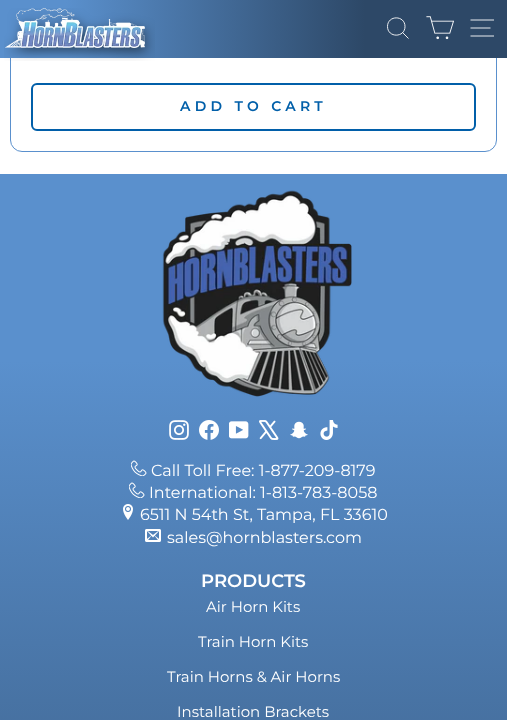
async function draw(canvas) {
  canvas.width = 507
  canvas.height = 720
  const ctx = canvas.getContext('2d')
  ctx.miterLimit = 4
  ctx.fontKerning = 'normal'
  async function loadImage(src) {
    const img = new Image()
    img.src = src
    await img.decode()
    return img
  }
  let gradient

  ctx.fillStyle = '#fff'
  ctx.fillRect(0, 0, 507, 720)
  ctx.beginPath()
  ctx.roundRect(10.5, -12.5, 486, 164, 11.5)
  ctx.strokeStyle = '#5a90cd'
  ctx.stroke()
  ctx.fillStyle = '#00000033'
  ctx.filter = 'blur(0.5px)'
  ctx.beginPath()
  ctx.rect(0, 0, 507, 58)
  ctx.fill()
  ctx.filter = 'none'
  gradient = ctx.createLinearGradient(0, 29, 507, 29)
  gradient.addColorStop(0.13, '#5a90cd')
  gradient.addColorStop(0.72, '#2d4867')
  ctx.fillStyle = gradient
  ctx.fillRect(0, 0, 507, 58)
  ctx.drawImage(await loadImage('image0.png'), 4, 8, 151, 53)
  ctx.beginPath()
  ctx.moveTo(405, 26.5)
  ctx.bezierCurveTo(405, 38, 387.5, 38, 387.5, 26.5)
  ctx.bezierCurveTo(387.5, 15, 405, 15, 405, 26.5)
  ctx.closePath()
  ctx.moveTo(408.5, 38.5)
  ctx.lineTo(402.5, 32.5)
  ctx.strokeStyle = '#fff'
  ctx.lineWidth = 0.9
  ctx.stroke()
  ctx.drawImage(await loadImage('image1.png'), 426, 16, 28, 24)
  ctx.beginPath()
  ctx.moveTo(470.5, 20)
  ctx.lineTo(494, 20)
  ctx.moveTo(470.5, 28)
  ctx.lineTo(490.5, 28)
  ctx.moveTo(470.5, 36)
  ctx.lineTo(494, 36)
  ctx.stroke()
  ctx.beginPath()
  ctx.roundRect(32, 84, 443, 46, 5)
  ctx.strokeStyle = '#015fa9'
  ctx.lineWidth = 2
  ctx.stroke()
  ctx.letterSpacing = '4.25px'
  ctx.font = '600 14px Montserrat'
  ctx.fillStyle = '#015fa9'
  ctx.fillText('ADD TO CART', 180, 111)
  gradient = ctx.createLinearGradient(253, 174, 254, 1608)
  gradient.addColorStop(0.13, '#5a90cd')
  gradient.addColorStop(0.72, '#2d4867')
  ctx.fillStyle = gradient
  ctx.fillRect(0, 174, 507, 546)
  ctx.drawImage(await loadImage('image2.png'), 162, 190, 190, 207)
  ctx.drawImage(await loadImage('image3.png'), 169, 420, 20, 20)
  ctx.drawImage(await loadImage('image4.png'), 199, 420, 20, 20)
  ctx.drawImage(await loadImage('image5.png'), 229, 421, 20, 18)
  ctx.drawImage(await loadImage('image6.png'), 259, 420, 20, 20)
  ctx.drawImage(await loadImage('image7.png'), 290, 421, 18, 18)
  ctx.drawImage(await loadImage('image8.png'), 320, 420, 18, 20)
  ctx.drawImage(await loadImage('image9.png'), 131, 460, 16, 16)
  ctx.letterSpacing = '0px'
  ctx.font = '16px Montserrat'
  ctx.fillStyle = '#fff'
  ctx.fillText('Call Toll Free: 1-877-209-8179', 151, 476)
  ctx.drawImage(await loadImage('image10.png'), 129, 482, 16, 16)
  ctx.fillText('International: 1-813-783-8058', 149, 498)
  ctx.drawImage(await loadImage('image11.png'), 123, 504, 10, 16)
  ctx.fillText('6511 N 54th St, Tampa, FL 33610', 140, 520)
  ctx.drawImage(await loadImage('image12.png'), 145, 529, 16, 13)
  ctx.fillText('sales@hornblasters.com', 167, 543)
  ctx.font = '600 18px Montserrat'
  ctx.fillText('PRODUCTS', 201, 587)
  ctx.font = '15px Montserrat'
  ctx.fillText('Air Horn Kits', 206, 612)
  ctx.fillText('Train Horn Kits', 198, 647)
  ctx.fillText('Train Horns & Air Horns', 167, 682)
  ctx.fillText('Installation Brackets', 177, 717)
}

draw(document.querySelector('canvas'))
